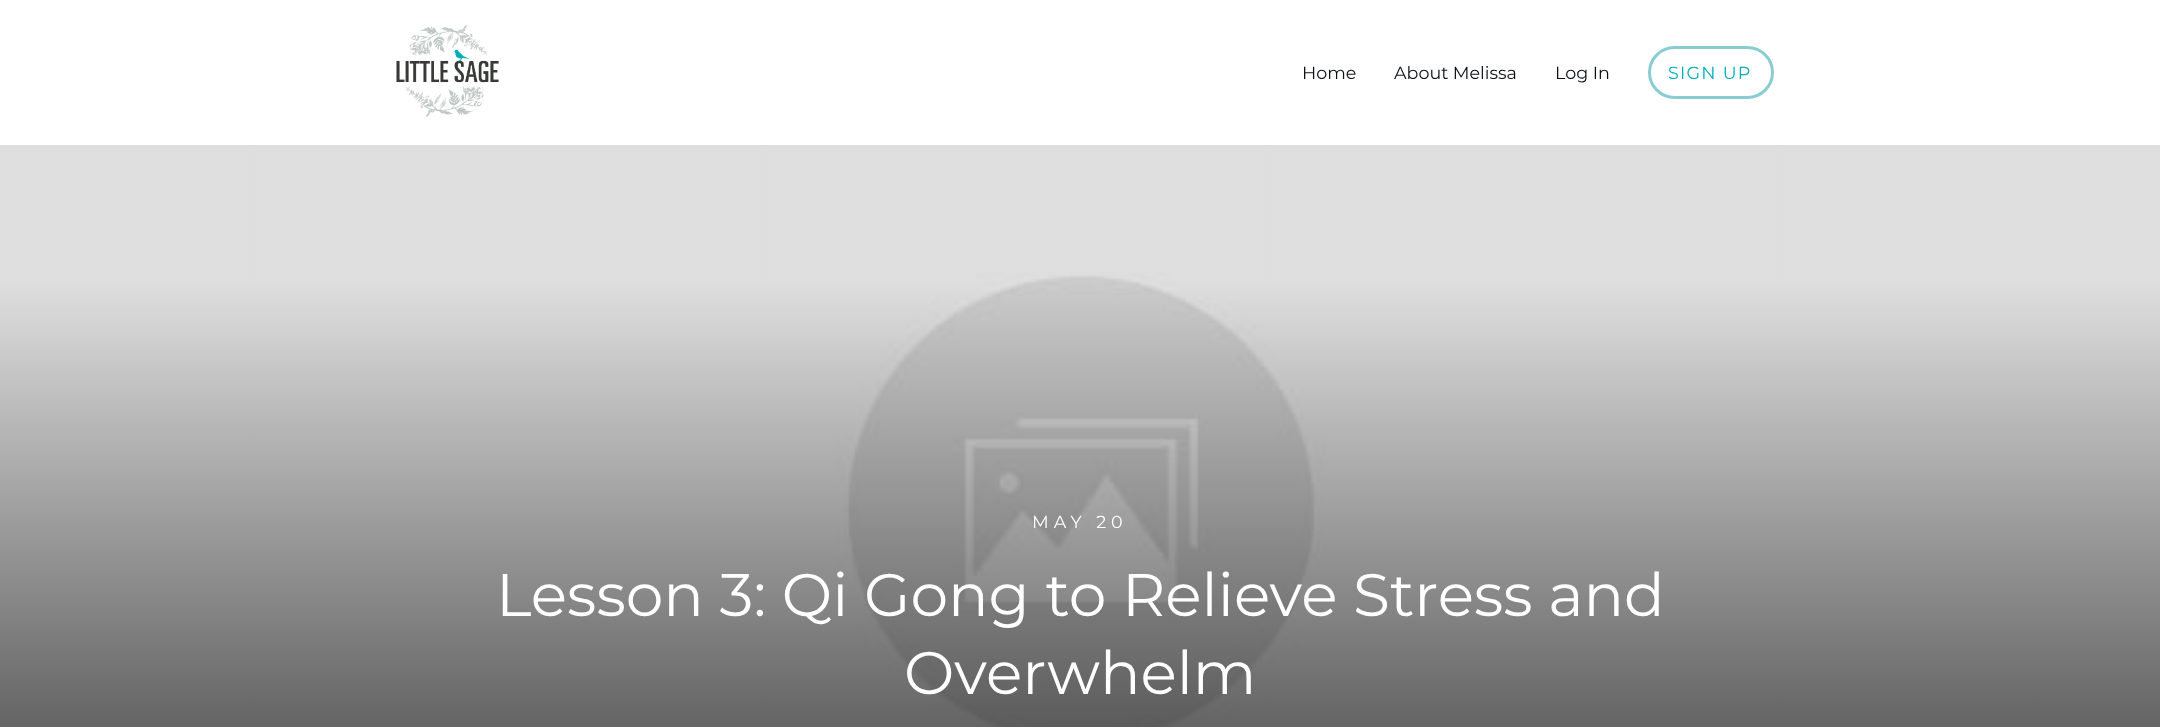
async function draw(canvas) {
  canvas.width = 2160
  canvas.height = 727
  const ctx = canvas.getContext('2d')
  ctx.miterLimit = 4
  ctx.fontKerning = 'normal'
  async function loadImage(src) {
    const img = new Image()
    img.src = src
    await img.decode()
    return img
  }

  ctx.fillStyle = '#fff'
  ctx.fillRect(0, 0, 2160, 727)
  ctx.drawImage(await loadImage('image0.png'), 396, 24, 103, 94)
  ctx.font = '17.5px Montserrat'
  ctx.fillStyle = '#0c1115'
  ctx.fillText('Home', 1302, 79)
  ctx.fillText('About Melissa', 1394, 79)
  ctx.fillText('Log In', 1555, 79)
  ctx.beginPath()
  ctx.roundRect(1649.5, 47.5, 123, 50, 25)
  ctx.strokeStyle = '#89cdd2'
  ctx.lineWidth = 3
  ctx.stroke()
  ctx.letterSpacing = '1.25px'
  ctx.fillStyle = '#00b0bd'
  ctx.fillText('SIGN UP', 1668, 79)
  ctx.drawImage(await loadImage('image1.png'), 0, 145, 2160, 582)
  ctx.letterSpacing = '5px'
  ctx.fillStyle = '#fff'
  ctx.fillText('MAY 20', 1032, 528)
  ctx.letterSpacing = '0px'
  ctx.font = '60px Montserrat'
  ctx.fillText('Lesson 3: Qi Gong to Relieve Stress and', 496, 616)
  ctx.fillText('Overwhelm', 904, 694)
}

draw(document.querySelector('canvas'))
